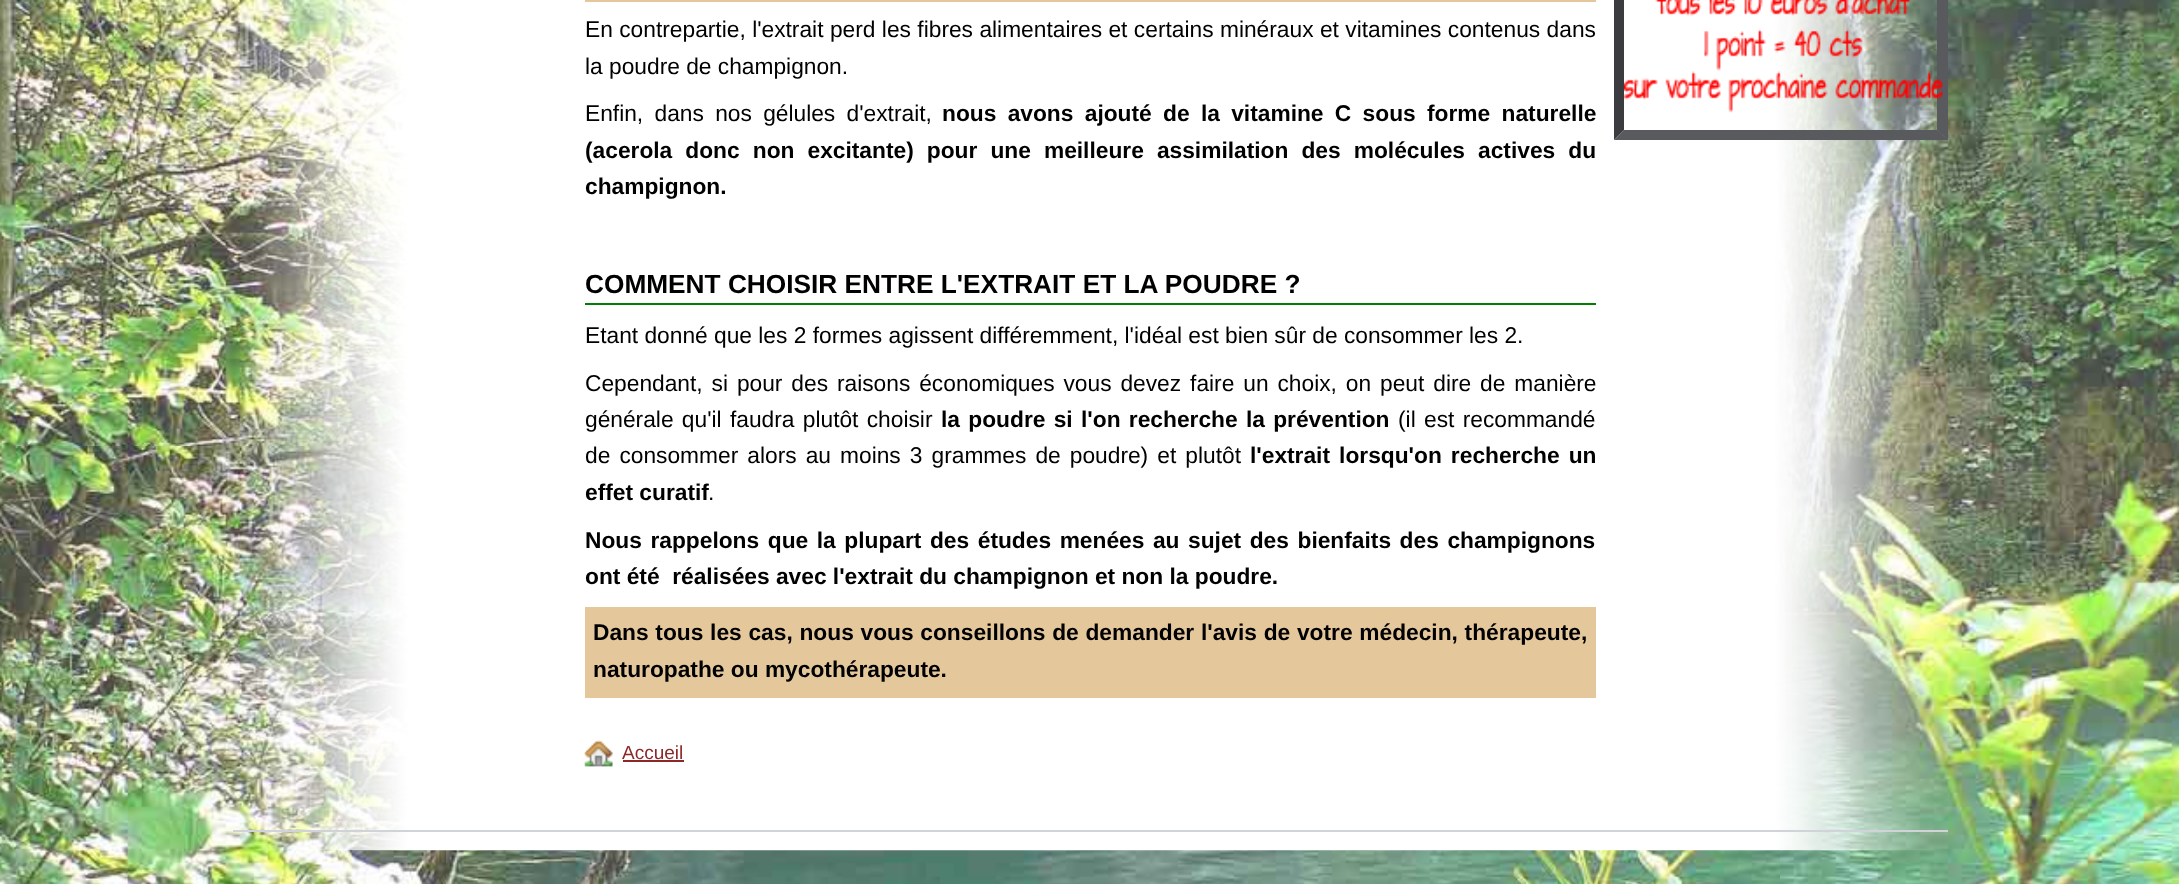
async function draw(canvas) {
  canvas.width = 2179
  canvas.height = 884
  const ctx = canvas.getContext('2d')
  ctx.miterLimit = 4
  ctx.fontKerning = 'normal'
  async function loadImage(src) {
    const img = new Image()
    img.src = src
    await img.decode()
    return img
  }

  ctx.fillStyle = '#fff'
  ctx.fillRect(0, 0, 2179, 884)
  ctx.drawImage(await loadImage('image0.png'), 0, 0, 2179, 884)
  ctx.drawImage(await loadImage('image1.png'), 240, 0, 1702, 851)
  ctx.fillStyle = '#e5c79c'
  ctx.fillRect(585, 0, 1011, 2)
  ctx.wordSpacing = '0.1px'
  ctx.font = '22.75px Liberation Sans'
  ctx.fillStyle = '#000'
  ctx.fillText('En contrepartie, l\'extrait perd les fibres alimentaires et certains minéraux et vitamines contenus dans', 585, 37)
  ctx.wordSpacing = '0px'
  ctx.fillText('la poudre de champignon.', 585, 74)
  ctx.wordSpacing = '5px'
  ctx.fillText('Enfin, dans nos gélules d\'extrait,', 585, 121)
  ctx.font = 'bold 22.75px Liberation Sans'
  ctx.fillText('nous avons ajouté de la vitamine C sous forme naturelle', 942, 121)
  ctx.wordSpacing = '6.75px'
  ctx.fillText('(acerola donc non excitante) pour une meilleure assimilation des molécules actives du', 585, 158)
  ctx.wordSpacing = '0px'
  ctx.fillText('champignon.', 585, 194)
  ctx.fillStyle = '#008000'
  ctx.fillRect(585, 303, 1011, 2)
  ctx.font = 'bold 26.25px Liberation Sans'
  ctx.fillStyle = '#000'
  ctx.fillText('COMMENT CHOISIR ENTRE L\'EXTRAIT ET LA POUDRE ?', 585, 293)
  ctx.font = '22.75px Liberation Sans'
  ctx.fillText('Etant donné que les 2 formes agissent différemment, l\'idéal est bien sûr de consommer les 2.', 585, 343)
  ctx.wordSpacing = '2.6px'
  ctx.fillText('Cependant, si pour des raisons économiques vous devez faire un choix, on peut dire de manière', 585, 391)
  ctx.wordSpacing = '2px'
  ctx.fillText('générale qu\'il faudra plutôt choisir', 585, 427)
  ctx.font = 'bold 22.75px Liberation Sans'
  ctx.fillText('la poudre si l\'on recherche la prévention', 941, 427)
  ctx.font = '22.75px Liberation Sans'
  ctx.fillText('(il est recommandé', 1398, 427)
  ctx.wordSpacing = '2.75px'
  ctx.fillText('de consommer alors au moins 3 grammes de poudre) et plutôt', 585, 463)
  ctx.font = 'bold 22.75px Liberation Sans'
  ctx.fillText('l\'extrait lorsqu\'on recherche un', 1250, 463)
  ctx.wordSpacing = '0px'
  ctx.fillText('effet curatif', 585, 500)
  ctx.font = '22.75px Liberation Sans'
  ctx.fillText('.', 708, 500)
  ctx.wordSpacing = '2.25px'
  ctx.font = 'bold 22.75px Liberation Sans'
  ctx.fillText('Nous rappelons que la plupart des études menées au sujet des bienfaits des champignons', 585, 548)
  ctx.wordSpacing = '0px'
  ctx.fillText('ont été  réalisées avec l\'extrait du champignon et non la poudre.', 585, 584)
  ctx.fillStyle = '#e5c79c'
  ctx.fillRect(585, 607, 1011, 91)
  ctx.wordSpacing = '0.4px'
  ctx.fillStyle = '#000'
  ctx.fillText('Dans tous les cas, nous vous conseillons de demander l\'avis de votre médecin, thérapeute,', 593, 640)
  ctx.wordSpacing = '0px'
  ctx.fillText('naturopathe ou mycothérapeute.', 593, 677)
  ctx.drawImage(await loadImage('image2.png'), 584, 740, 29, 27)
  ctx.font = '19px Liberation Sans'
  ctx.fillStyle = '#8b2929'
  ctx.fillText('Accueil', 622, 759)
  ctx.fillRect(623, 760, 61, 2)
  ctx.fillStyle = '#595a5e'
  ctx.beginPath()
  ctx.moveTo(1948, -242)
  ctx.lineTo(1948, 140)
  ctx.lineTo(1937, 130)
  ctx.lineTo(1937, -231)
  ctx.closePath()
  ctx.fill()
  ctx.beginPath()
  ctx.moveTo(1948, 140)
  ctx.lineTo(1614, 140)
  ctx.lineTo(1624, 130)
  ctx.lineTo(1937, 130)
  ctx.closePath()
  ctx.fill()
  ctx.fillStyle = '#3b3c3f'
  ctx.beginPath()
  ctx.moveTo(1614, 140)
  ctx.lineTo(1614, -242)
  ctx.lineTo(1624, -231)
  ctx.lineTo(1624, 130)
  ctx.closePath()
  ctx.fill()
  ctx.drawImage(await loadImage('image3.png'), 1624, 0, 319, 113)
  ctx.fillStyle = '#d0d3d8'
  ctx.fillRect(233, 830, 1715, 2)
}

draw(document.querySelector('canvas'))
